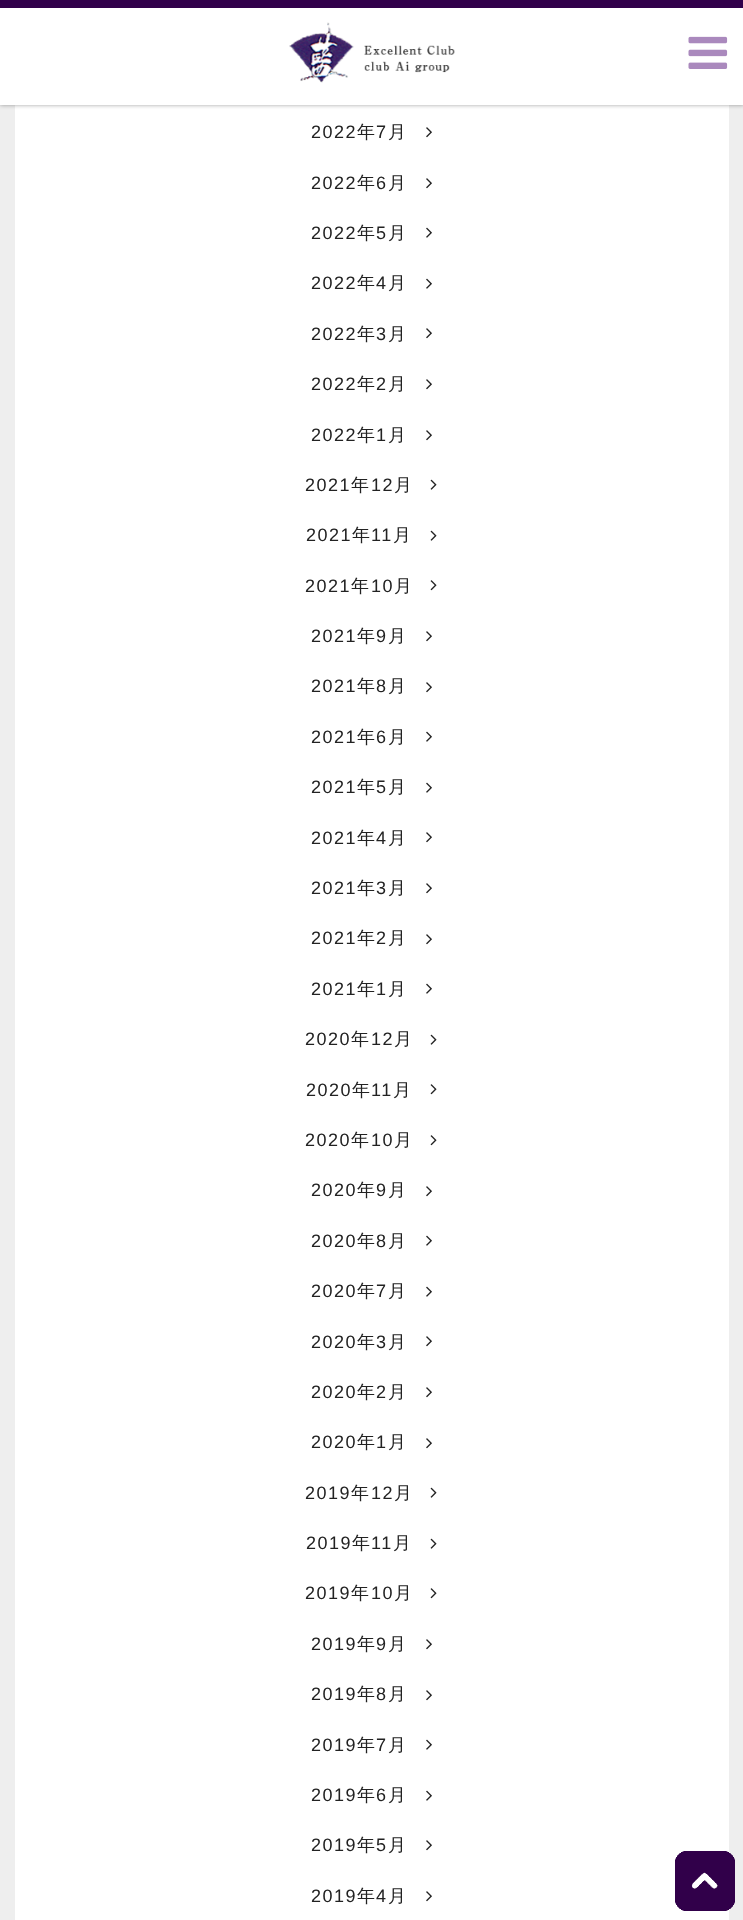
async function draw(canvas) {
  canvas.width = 743
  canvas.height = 1920
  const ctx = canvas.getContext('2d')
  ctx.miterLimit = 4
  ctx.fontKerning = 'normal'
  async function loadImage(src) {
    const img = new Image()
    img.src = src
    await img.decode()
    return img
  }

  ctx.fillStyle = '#eee'
  ctx.fillRect(0, 0, 743, 1920)
  ctx.fillStyle = '#fff'
  ctx.fillRect(15, 105, 714, 1815)
  ctx.fillStyle = '#15151566'
  ctx.filter = 'blur(2px)'
  ctx.beginPath()
  ctx.rect(0, 0, 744, 105)
  ctx.fill()
  ctx.filter = 'none'
  ctx.fillStyle = '#31004a'
  ctx.fillRect(0, 0, 743, 8)
  ctx.fillStyle = '#fff'
  ctx.fillRect(0, 8, 743, 97)
  ctx.drawImage(await loadImage('image0.png'), 289, 22, 166, 61)
  ctx.drawImage(await loadImage('image1.png'), 688, 36, 40, 33)
  ctx.letterSpacing = '1.5px'
  ctx.font = '18px Liberation Sans'
  ctx.fillStyle = '#222'
  ctx.fillText('2022', 311, 138)
  ctx.font = '500 18px WenQuanYi Zen Hei'
  ctx.fillText('年', 357, 138)
  ctx.font = '18px Liberation Sans'
  ctx.fillText('7', 376, 138)
  ctx.font = '500 18px WenQuanYi Zen Hei'
  ctx.fillText('月', 388, 138)
  ctx.drawImage(await loadImage('image2.png'), 426, 127, 6, 11)
  ctx.font = '18px Liberation Sans'
  ctx.fillText('2022', 311, 189)
  ctx.font = '500 18px WenQuanYi Zen Hei'
  ctx.fillText('年', 357, 189)
  ctx.font = '18px Liberation Sans'
  ctx.fillText('6', 376, 189)
  ctx.font = '500 18px WenQuanYi Zen Hei'
  ctx.fillText('月', 388, 189)
  ctx.drawImage(await loadImage('image2.png'), 426, 178, 6, 11)
  ctx.font = '18px Liberation Sans'
  ctx.fillText('2022', 311, 239)
  ctx.font = '500 18px WenQuanYi Zen Hei'
  ctx.fillText('年', 357, 239)
  ctx.font = '18px Liberation Sans'
  ctx.fillText('5', 376, 239)
  ctx.font = '500 18px WenQuanYi Zen Hei'
  ctx.fillText('月', 388, 239)
  ctx.drawImage(await loadImage('image3.png'), 426, 227, 6, 11)
  ctx.font = '18px Liberation Sans'
  ctx.fillText('2022', 311, 289)
  ctx.font = '500 18px WenQuanYi Zen Hei'
  ctx.fillText('年', 357, 289)
  ctx.font = '18px Liberation Sans'
  ctx.fillText('4', 376, 289)
  ctx.font = '500 18px WenQuanYi Zen Hei'
  ctx.fillText('月', 388, 289)
  ctx.drawImage(await loadImage('image3.png'), 426, 278, 6, 11)
  ctx.font = '18px Liberation Sans'
  ctx.fillText('2022', 311, 340)
  ctx.font = '500 18px WenQuanYi Zen Hei'
  ctx.fillText('年', 357, 340)
  ctx.font = '18px Liberation Sans'
  ctx.fillText('3', 376, 340)
  ctx.font = '500 18px WenQuanYi Zen Hei'
  ctx.fillText('月', 388, 340)
  ctx.drawImage(await loadImage('image2.png'), 426, 328, 6, 11)
  ctx.font = '18px Liberation Sans'
  ctx.fillText('2022', 311, 390)
  ctx.font = '500 18px WenQuanYi Zen Hei'
  ctx.fillText('年', 357, 390)
  ctx.font = '18px Liberation Sans'
  ctx.fillText('2', 376, 390)
  ctx.font = '500 18px WenQuanYi Zen Hei'
  ctx.fillText('月', 388, 390)
  ctx.drawImage(await loadImage('image2.png'), 426, 379, 6, 11)
  ctx.font = '18px Liberation Sans'
  ctx.fillText('2022', 311, 441)
  ctx.font = '500 18px WenQuanYi Zen Hei'
  ctx.fillText('年', 357, 441)
  ctx.font = '18px Liberation Sans'
  ctx.fillText('1', 376, 441)
  ctx.font = '500 18px WenQuanYi Zen Hei'
  ctx.fillText('月', 388, 441)
  ctx.drawImage(await loadImage('image2.png'), 426, 430, 6, 11)
  ctx.font = '18px Liberation Sans'
  ctx.fillText('2021', 305, 491)
  ctx.font = '500 18px WenQuanYi Zen Hei'
  ctx.fillText('年', 351, 491)
  ctx.font = '18px Liberation Sans'
  ctx.fillText('12', 371, 491)
  ctx.font = '500 18px WenQuanYi Zen Hei'
  ctx.fillText('月', 394, 491)
  ctx.drawImage(await loadImage('image4.png'), 430, 479, 7, 11)
  ctx.font = '18px Liberation Sans'
  ctx.fillText('2021', 306, 541)
  ctx.font = '500 18px WenQuanYi Zen Hei'
  ctx.fillText('年', 352, 541)
  ctx.font = '18px Liberation Sans'
  ctx.fillText('11', 371, 541)
  ctx.font = '500 18px WenQuanYi Zen Hei'
  ctx.fillText('月', 393, 541)
  ctx.drawImage(await loadImage('image4.png'), 430, 530, 7, 11)
  ctx.font = '18px Liberation Sans'
  ctx.fillText('2021', 305, 592)
  ctx.font = '500 18px WenQuanYi Zen Hei'
  ctx.fillText('年', 351, 592)
  ctx.font = '18px Liberation Sans'
  ctx.fillText('10', 371, 592)
  ctx.font = '500 18px WenQuanYi Zen Hei'
  ctx.fillText('月', 394, 592)
  ctx.drawImage(await loadImage('image5.png'), 430, 580, 7, 11)
  ctx.font = '18px Liberation Sans'
  ctx.fillText('2021', 311, 642)
  ctx.font = '500 18px WenQuanYi Zen Hei'
  ctx.fillText('年', 357, 642)
  ctx.font = '18px Liberation Sans'
  ctx.fillText('9', 376, 642)
  ctx.font = '500 18px WenQuanYi Zen Hei'
  ctx.fillText('月', 388, 642)
  ctx.drawImage(await loadImage('image2.png'), 426, 631, 6, 11)
  ctx.font = '18px Liberation Sans'
  ctx.fillText('2021', 311, 692)
  ctx.font = '500 18px WenQuanYi Zen Hei'
  ctx.fillText('年', 357, 692)
  ctx.font = '18px Liberation Sans'
  ctx.fillText('8', 376, 692)
  ctx.font = '500 18px WenQuanYi Zen Hei'
  ctx.fillText('月', 388, 692)
  ctx.drawImage(await loadImage('image2.png'), 426, 682, 6, 11)
  ctx.font = '18px Liberation Sans'
  ctx.fillText('2021', 311, 743)
  ctx.font = '500 18px WenQuanYi Zen Hei'
  ctx.fillText('年', 357, 743)
  ctx.font = '18px Liberation Sans'
  ctx.fillText('6', 376, 743)
  ctx.font = '500 18px WenQuanYi Zen Hei'
  ctx.fillText('月', 388, 743)
  ctx.drawImage(await loadImage('image3.png'), 426, 731, 6, 11)
  ctx.font = '18px Liberation Sans'
  ctx.fillText('2021', 311, 793)
  ctx.font = '500 18px WenQuanYi Zen Hei'
  ctx.fillText('年', 357, 793)
  ctx.font = '18px Liberation Sans'
  ctx.fillText('5', 376, 793)
  ctx.font = '500 18px WenQuanYi Zen Hei'
  ctx.fillText('月', 388, 793)
  ctx.drawImage(await loadImage('image3.png'), 426, 782, 6, 11)
  ctx.font = '18px Liberation Sans'
  ctx.fillText('2021', 311, 844)
  ctx.font = '500 18px WenQuanYi Zen Hei'
  ctx.fillText('年', 357, 844)
  ctx.font = '18px Liberation Sans'
  ctx.fillText('4', 376, 844)
  ctx.font = '500 18px WenQuanYi Zen Hei'
  ctx.fillText('月', 388, 844)
  ctx.drawImage(await loadImage('image2.png'), 426, 832, 6, 11)
  ctx.font = '18px Liberation Sans'
  ctx.fillText('2021', 311, 894)
  ctx.font = '500 18px WenQuanYi Zen Hei'
  ctx.fillText('年', 357, 894)
  ctx.font = '18px Liberation Sans'
  ctx.fillText('3', 376, 894)
  ctx.font = '500 18px WenQuanYi Zen Hei'
  ctx.fillText('月', 388, 894)
  ctx.drawImage(await loadImage('image2.png'), 426, 883, 6, 11)
  ctx.font = '18px Liberation Sans'
  ctx.fillText('2021', 311, 944)
  ctx.font = '500 18px WenQuanYi Zen Hei'
  ctx.fillText('年', 357, 944)
  ctx.font = '18px Liberation Sans'
  ctx.fillText('2', 376, 944)
  ctx.font = '500 18px WenQuanYi Zen Hei'
  ctx.fillText('月', 388, 944)
  ctx.drawImage(await loadImage('image2.png'), 426, 934, 6, 11)
  ctx.font = '18px Liberation Sans'
  ctx.fillText('2021', 311, 995)
  ctx.font = '500 18px WenQuanYi Zen Hei'
  ctx.fillText('年', 357, 995)
  ctx.font = '18px Liberation Sans'
  ctx.fillText('1', 376, 995)
  ctx.font = '500 18px WenQuanYi Zen Hei'
  ctx.fillText('月', 388, 995)
  ctx.drawImage(await loadImage('image3.png'), 426, 983, 6, 11)
  ctx.font = '18px Liberation Sans'
  ctx.fillText('2020', 305, 1045)
  ctx.font = '500 18px WenQuanYi Zen Hei'
  ctx.fillText('年', 351, 1045)
  ctx.font = '18px Liberation Sans'
  ctx.fillText('12', 371, 1045)
  ctx.font = '500 18px WenQuanYi Zen Hei'
  ctx.fillText('月', 394, 1045)
  ctx.drawImage(await loadImage('image4.png'), 430, 1034, 7, 11)
  ctx.font = '18px Liberation Sans'
  ctx.fillText('2020', 306, 1096)
  ctx.font = '500 18px WenQuanYi Zen Hei'
  ctx.fillText('年', 352, 1096)
  ctx.font = '18px Liberation Sans'
  ctx.fillText('11', 371, 1096)
  ctx.font = '500 18px WenQuanYi Zen Hei'
  ctx.fillText('月', 393, 1096)
  ctx.drawImage(await loadImage('image5.png'), 430, 1084, 7, 11)
  ctx.font = '18px Liberation Sans'
  ctx.fillText('2020', 305, 1146)
  ctx.font = '500 18px WenQuanYi Zen Hei'
  ctx.fillText('年', 351, 1146)
  ctx.font = '18px Liberation Sans'
  ctx.fillText('10', 371, 1146)
  ctx.font = '500 18px WenQuanYi Zen Hei'
  ctx.fillText('月', 394, 1146)
  ctx.drawImage(await loadImage('image5.png'), 430, 1135, 7, 11)
  ctx.font = '18px Liberation Sans'
  ctx.fillText('2020', 311, 1196)
  ctx.font = '500 18px WenQuanYi Zen Hei'
  ctx.fillText('年', 357, 1196)
  ctx.font = '18px Liberation Sans'
  ctx.fillText('9', 376, 1196)
  ctx.font = '500 18px WenQuanYi Zen Hei'
  ctx.fillText('月', 388, 1196)
  ctx.drawImage(await loadImage('image2.png'), 426, 1186, 6, 11)
  ctx.font = '18px Liberation Sans'
  ctx.fillText('2020', 311, 1247)
  ctx.font = '500 18px WenQuanYi Zen Hei'
  ctx.fillText('年', 357, 1247)
  ctx.font = '18px Liberation Sans'
  ctx.fillText('8', 376, 1247)
  ctx.font = '500 18px WenQuanYi Zen Hei'
  ctx.fillText('月', 388, 1247)
  ctx.drawImage(await loadImage('image3.png'), 426, 1235, 6, 11)
  ctx.font = '18px Liberation Sans'
  ctx.fillText('2020', 311, 1297)
  ctx.font = '500 18px WenQuanYi Zen Hei'
  ctx.fillText('年', 357, 1297)
  ctx.font = '18px Liberation Sans'
  ctx.fillText('7', 376, 1297)
  ctx.font = '500 18px WenQuanYi Zen Hei'
  ctx.fillText('月', 388, 1297)
  ctx.drawImage(await loadImage('image3.png'), 426, 1286, 6, 11)
  ctx.font = '18px Liberation Sans'
  ctx.fillText('2020', 311, 1348)
  ctx.font = '500 18px WenQuanYi Zen Hei'
  ctx.fillText('年', 357, 1348)
  ctx.font = '18px Liberation Sans'
  ctx.fillText('3', 376, 1348)
  ctx.font = '500 18px WenQuanYi Zen Hei'
  ctx.fillText('月', 388, 1348)
  ctx.drawImage(await loadImage('image2.png'), 426, 1336, 6, 11)
  ctx.font = '18px Liberation Sans'
  ctx.fillText('2020', 311, 1398)
  ctx.font = '500 18px WenQuanYi Zen Hei'
  ctx.fillText('年', 357, 1398)
  ctx.font = '18px Liberation Sans'
  ctx.fillText('2', 376, 1398)
  ctx.font = '500 18px WenQuanYi Zen Hei'
  ctx.fillText('月', 388, 1398)
  ctx.drawImage(await loadImage('image2.png'), 426, 1387, 6, 11)
  ctx.font = '18px Liberation Sans'
  ctx.fillText('2020', 311, 1448)
  ctx.font = '500 18px WenQuanYi Zen Hei'
  ctx.fillText('年', 357, 1448)
  ctx.font = '18px Liberation Sans'
  ctx.fillText('1', 376, 1448)
  ctx.font = '500 18px WenQuanYi Zen Hei'
  ctx.fillText('月', 388, 1448)
  ctx.drawImage(await loadImage('image2.png'), 426, 1438, 6, 11)
  ctx.font = '18px Liberation Sans'
  ctx.fillText('2019', 305, 1499)
  ctx.font = '500 18px WenQuanYi Zen Hei'
  ctx.fillText('年', 351, 1499)
  ctx.font = '18px Liberation Sans'
  ctx.fillText('12', 371, 1499)
  ctx.font = '500 18px WenQuanYi Zen Hei'
  ctx.fillText('月', 394, 1499)
  ctx.drawImage(await loadImage('image4.png'), 430, 1487, 7, 11)
  ctx.font = '18px Liberation Sans'
  ctx.fillText('2019', 306, 1549)
  ctx.font = '500 18px WenQuanYi Zen Hei'
  ctx.fillText('年', 352, 1549)
  ctx.font = '18px Liberation Sans'
  ctx.fillText('11', 371, 1549)
  ctx.font = '500 18px WenQuanYi Zen Hei'
  ctx.fillText('月', 393, 1549)
  ctx.drawImage(await loadImage('image4.png'), 430, 1538, 7, 11)
  ctx.font = '18px Liberation Sans'
  ctx.fillText('2019', 305, 1599)
  ctx.font = '500 18px WenQuanYi Zen Hei'
  ctx.fillText('年', 351, 1599)
  ctx.font = '18px Liberation Sans'
  ctx.fillText('10', 371, 1599)
  ctx.font = '500 18px WenQuanYi Zen Hei'
  ctx.fillText('月', 394, 1599)
  ctx.drawImage(await loadImage('image5.png'), 430, 1588, 7, 11)
  ctx.font = '18px Liberation Sans'
  ctx.fillText('2019', 311, 1650)
  ctx.font = '500 18px WenQuanYi Zen Hei'
  ctx.fillText('年', 357, 1650)
  ctx.font = '18px Liberation Sans'
  ctx.fillText('9', 376, 1650)
  ctx.font = '500 18px WenQuanYi Zen Hei'
  ctx.fillText('月', 388, 1650)
  ctx.drawImage(await loadImage('image2.png'), 426, 1639, 6, 11)
  ctx.font = '18px Liberation Sans'
  ctx.fillText('2019', 311, 1700)
  ctx.font = '500 18px WenQuanYi Zen Hei'
  ctx.fillText('年', 357, 1700)
  ctx.font = '18px Liberation Sans'
  ctx.fillText('8', 376, 1700)
  ctx.font = '500 18px WenQuanYi Zen Hei'
  ctx.fillText('月', 388, 1700)
  ctx.drawImage(await loadImage('image2.png'), 426, 1690, 6, 11)
  ctx.font = '18px Liberation Sans'
  ctx.fillText('2019', 311, 1751)
  ctx.font = '500 18px WenQuanYi Zen Hei'
  ctx.fillText('年', 357, 1751)
  ctx.font = '18px Liberation Sans'
  ctx.fillText('7', 376, 1751)
  ctx.font = '500 18px WenQuanYi Zen Hei'
  ctx.fillText('月', 388, 1751)
  ctx.drawImage(await loadImage('image3.png'), 426, 1739, 6, 11)
  ctx.font = '18px Liberation Sans'
  ctx.fillText('2019', 311, 1801)
  ctx.font = '500 18px WenQuanYi Zen Hei'
  ctx.fillText('年', 357, 1801)
  ctx.font = '18px Liberation Sans'
  ctx.fillText('6', 376, 1801)
  ctx.font = '500 18px WenQuanYi Zen Hei'
  ctx.fillText('月', 388, 1801)
  ctx.drawImage(await loadImage('image3.png'), 426, 1790, 6, 11)
  ctx.font = '18px Liberation Sans'
  ctx.fillText('2019', 311, 1851)
  ctx.font = '500 18px WenQuanYi Zen Hei'
  ctx.fillText('年', 357, 1851)
  ctx.font = '18px Liberation Sans'
  ctx.fillText('5', 376, 1851)
  ctx.font = '500 18px WenQuanYi Zen Hei'
  ctx.fillText('月', 388, 1851)
  ctx.drawImage(await loadImage('image2.png'), 426, 1840, 6, 11)
  ctx.font = '18px Liberation Sans'
  ctx.fillText('2019', 311, 1902)
  ctx.font = '500 18px WenQuanYi Zen Hei'
  ctx.fillText('年', 357, 1902)
  ctx.font = '18px Liberation Sans'
  ctx.fillText('4', 376, 1902)
  ctx.font = '500 18px WenQuanYi Zen Hei'
  ctx.fillText('月', 388, 1902)
  ctx.drawImage(await loadImage('image2.png'), 426, 1891, 6, 11)
  ctx.drawImage(await loadImage('image6.png'), 675, 1851, 60, 60)
}

draw(document.querySelector('canvas'))
